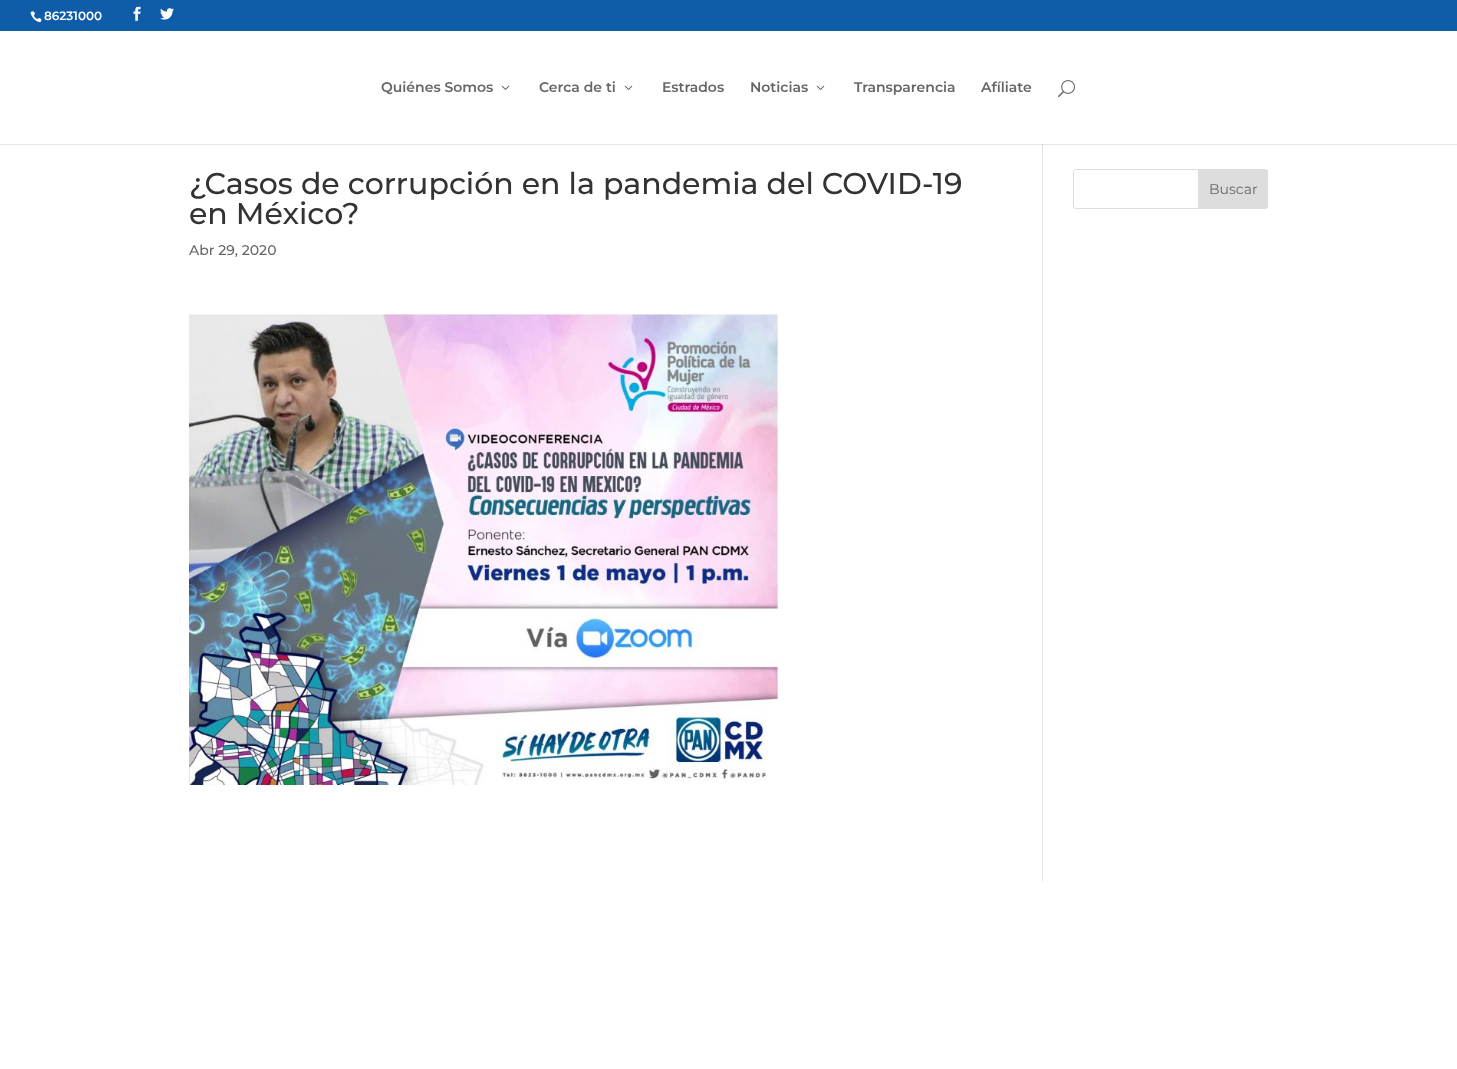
async function draw(canvas) {
  canvas.width = 1457
  canvas.height = 1069
  const ctx = canvas.getContext('2d')
  ctx.miterLimit = 4
  ctx.fontKerning = 'normal'
  async function loadImage(src) {
    const img = new Image()
    img.src = src
    await img.decode()
    return img
  }

  ctx.fillStyle = '#fff'
  ctx.fillRect(0, 0, 1457, 1069)
  ctx.fillStyle = '#e6e6e6'
  ctx.fillRect(0, 144, 1457, 1)
  ctx.fillStyle = '#0f5ca8'
  ctx.fillRect(0, 0, 1457, 31)
  ctx.drawImage(await loadImage('image0.png'), 30, 11, 12, 12)
  ctx.font = '600 12px Montserrat'
  ctx.fillStyle = '#fff'
  ctx.fillText('86231000', 44, 20)
  ctx.drawImage(await loadImage('image1.png'), 133, 6, 8, 15)
  ctx.drawImage(await loadImage('image2.png'), 160, 8, 14, 12)
  ctx.font = '600 14px Montserrat'
  ctx.fillStyle = '#666'
  ctx.fillText('Quiénes Somos', 381, 92)
  ctx.drawImage(await loadImage('image3.png'), 501, 85, 9, 5)
  ctx.fillText('Cerca de ti', 539, 92)
  ctx.drawImage(await loadImage('image3.png'), 624, 85, 9, 5)
  ctx.fillText('Estrados', 662, 92)
  ctx.fillText('Noticias', 750, 92)
  ctx.drawImage(await loadImage('image3.png'), 816, 85, 9, 5)
  ctx.fillText('Transparencia', 854, 92)
  ctx.fillText('Afíliate', 981, 92)
  ctx.drawImage(await loadImage('image4.png'), 1058, 80, 17, 18)
  ctx.fillStyle = '#e2e2e2'
  ctx.fillRect(1042, 145, 1, 736)
  ctx.fillStyle = '#cbcbcb'
  ctx.fillRect(1042, 144, 1, 1)
  ctx.font = '500 30px Montserrat'
  ctx.fillStyle = '#333'
  ctx.fillText('¿Casos de corrupción en la pandemia del COVID-19', 189, 194)
  ctx.fillText('en México?', 189, 224)
  ctx.font = '500 14px Montserrat'
  ctx.fillStyle = '#666'
  ctx.fillText('Abr 29, 2020', 189, 255)
  ctx.drawImage(await loadImage('image5.png'), 189, 314, 589, 471)
  ctx.beginPath()
  ctx.roundRect(1073.5, 169.5, 194, 39, 2.5)
  ctx.strokeStyle = '#ddd'
  ctx.stroke()
  ctx.fillStyle = '#ddd'
  ctx.beginPath()
  ctx.roundRect(1198.5, 169.5, 69, 39, [0, 2.5, 2.5, 0])
  ctx.fill()
  ctx.stroke()
  ctx.font = '14px Montserrat'
  ctx.fillStyle = '#666'
  ctx.fillText('Buscar', 1209, 194)
}

draw(document.querySelector('canvas'))
